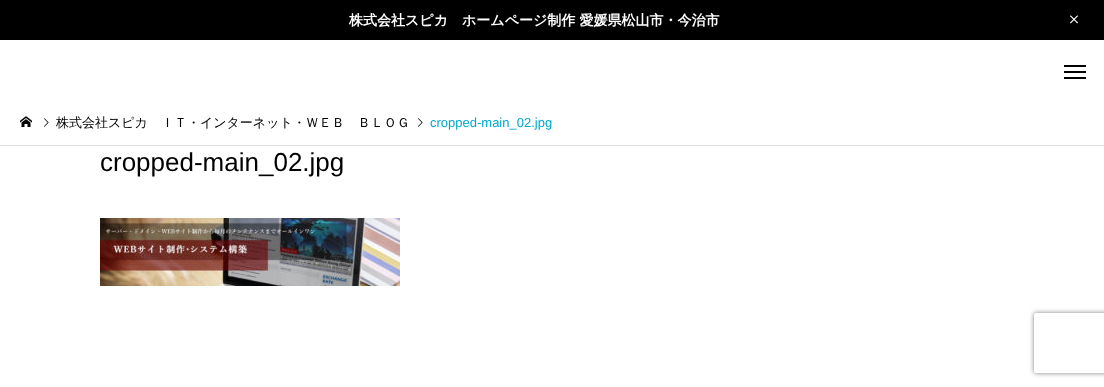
async function draw(canvas) {
  canvas.width = 1104
  canvas.height = 387
  const ctx = canvas.getContext('2d')
  ctx.miterLimit = 4
  ctx.fontKerning = 'normal'
  async function loadImage(src) {
    const img = new Image()
    img.src = src
    await img.decode()
    return img
  }

  ctx.fillStyle = '#fff'
  ctx.fillRect(0, 0, 1104, 387)
  ctx.fillStyle = '#000'
  ctx.fillRect(0, 0, 1104, 40)
  ctx.font = 'bold 14px WenQuanYi Zen Hei'
  ctx.fillStyle = '#fff'
  ctx.fillText('株式会社スピカ　ホームページ制作 愛媛県松山市・今治市', 349, 25)
  ctx.drawImage(await loadImage('image0.png'), 1070, 15, 8, 9)
  ctx.fillStyle = '#000'
  ctx.fillRect(1064, 65, 22, 2)
  ctx.fillRect(1064, 71, 22, 2)
  ctx.fillRect(1064, 77, 22, 2)
  ctx.fillStyle = '#ddd'
  ctx.fillRect(0, 145, 1104, 1)
  ctx.drawImage(await loadImage('image1.png'), 20, 116, 12, 11)
  ctx.drawImage(await loadImage('image2.png'), 44, 118, 5, 9)
  ctx.font = '500 13px WenQuanYi Zen Hei'
  ctx.fillStyle = '#000'
  ctx.fillText('株式会社スピカ　ＩＴ・インターネット・ＷＥＢ　ＢＬＯＧ', 56, 127)
  ctx.drawImage(await loadImage('image2.png'), 418, 118, 5, 9)
  ctx.font = '13px Liberation Sans'
  ctx.fillStyle = '#00a7ce'
  ctx.fillText('cropped-main_02.jpg', 430, 127)
  ctx.font = '26px Liberation Sans'
  ctx.fillStyle = '#000'
  ctx.fillText('cropped-main_02.jpg', 100, 171)
  ctx.drawImage(await loadImage('image3.png'), 100, 218, 300, 68)
  ctx.save()
  ctx.beginPath()
  ctx.moveTo(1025, 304)
  ctx.lineTo(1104, 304)
  ctx.lineTo(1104, 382)
  ctx.lineTo(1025, 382)
  ctx.closePath()
  ctx.moveTo(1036, 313)
  ctx.lineTo(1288, 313)
  ctx.bezierCurveTo(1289, 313, 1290, 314, 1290, 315)
  ctx.lineTo(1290, 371)
  ctx.bezierCurveTo(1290, 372, 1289, 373, 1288, 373)
  ctx.lineTo(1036, 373)
  ctx.bezierCurveTo(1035, 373, 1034, 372, 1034, 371)
  ctx.lineTo(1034, 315)
  ctx.bezierCurveTo(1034, 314, 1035, 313, 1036, 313)
  ctx.closePath()
  ctx.clip('evenodd')
  ctx.fillStyle = '#808080'
  ctx.filter = 'blur(2.5px)'
  ctx.beginPath()
  ctx.roundRect(1034, 313, 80, 60, 2)
  ctx.fill()
  ctx.filter = 'none'
  ctx.restore()
}

draw(document.querySelector('canvas'))
